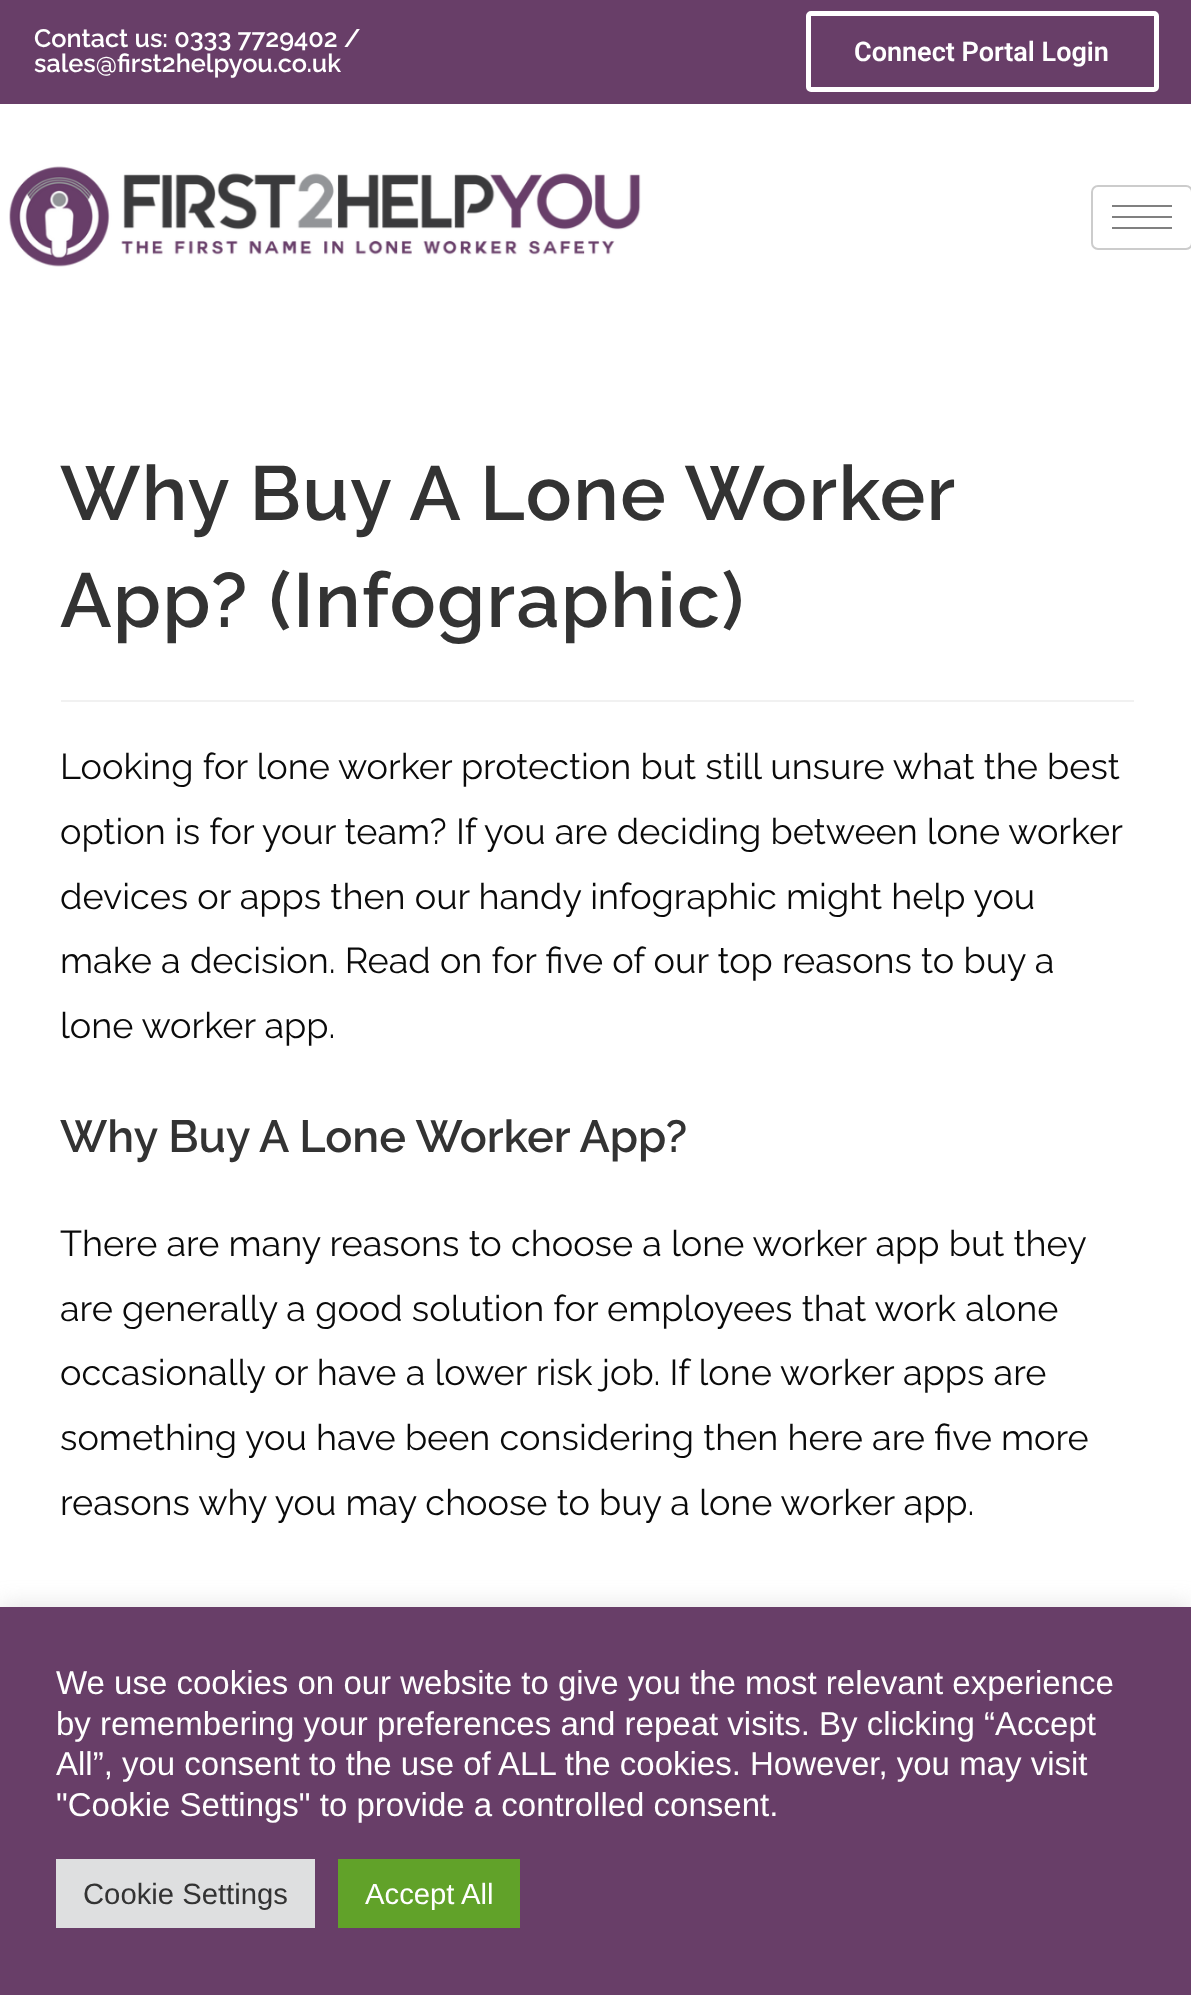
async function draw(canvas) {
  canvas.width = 1191
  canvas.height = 1995
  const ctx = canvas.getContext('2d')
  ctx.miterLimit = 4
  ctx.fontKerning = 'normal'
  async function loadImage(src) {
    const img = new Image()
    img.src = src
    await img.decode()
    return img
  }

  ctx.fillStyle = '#fff'
  ctx.fillRect(0, 0, 1191, 1995)
  ctx.fillStyle = '#683e68'
  ctx.fillRect(0, 0, 1191, 104)
  ctx.font = '600 25.25px Raleway'
  ctx.fillStyle = '#fff'
  ctx.fillText('Contact us: 0333 7729402 /', 34, 47)
  ctx.fillText('sales@first2helpyou.co.uk', 34, 72)
  ctx.beginPath()
  ctx.roundRect(808.5, 13.5, 348, 76, 2.5)
  ctx.strokeStyle = '#fff'
  ctx.lineWidth = 5
  ctx.stroke()
  ctx.font = '600 27px Roboto'
  ctx.fillText('Connect Portal Login', 854, 61)
  ctx.drawImage(await loadImage('image0.png'), 9, 166, 632, 101)
  ctx.beginPath()
  ctx.roundRect(1092, 186, 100, 63, 6)
  ctx.strokeStyle = '#ccc'
  ctx.lineWidth = 2
  ctx.stroke()
  ctx.fillStyle = '#808080'
  ctx.fillRect(1112, 205, 60, 2)
  ctx.fillRect(1112, 216, 60, 2)
  ctx.fillRect(1112, 227, 60, 2)
  ctx.fillStyle = '#f1f1f1'
  ctx.fillRect(61, 700, 1073, 2)
  ctx.letterSpacing = '1.35px'
  ctx.font = '600 76.5px Raleway'
  ctx.fillStyle = '#333'
  ctx.fillText('Why Buy A Lone Worker', 60, 520)
  ctx.fillText('App? (Infographic)', 60, 627)
  ctx.letterSpacing = '0px'
  ctx.font = '36px Raleway'
  ctx.fillStyle = '#0a0a0a'
  ctx.fillText('Looking for lone worker protection but still unsure what the best', 60, 779)
  ctx.fillText('option is for your team? If you are deciding between lone worker', 60, 844)
  ctx.fillText('devices or apps then our handy infographic might help you', 60, 909)
  ctx.fillText('make a decision. Read on for five of our top reasons to buy a', 60, 973)
  ctx.fillText('lone worker app.', 60, 1038)
  ctx.font = '600 45px Raleway'
  ctx.fillStyle = '#333'
  ctx.fillText('Why Buy A Lone Worker App?', 60, 1152)
  ctx.font = '36px Raleway'
  ctx.fillStyle = '#0a0a0a'
  ctx.fillText('There are many reasons to choose a lone worker app but they', 60, 1256)
  ctx.fillText('are generally a good solution for employees that work alone', 60, 1321)
  ctx.fillText('occasionally or have a lower risk job. If lone worker apps are', 60, 1385)
  ctx.fillText('something you have been considering then here are five more', 60, 1450)
  ctx.fillText('reasons why you may choose to buy a lone worker app.', 60, 1515)
  ctx.fillStyle = '#acabab4d'
  ctx.filter = 'blur(11px)'
  ctx.beginPath()
  ctx.rect(0, 1604, 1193, 390)
  ctx.fill()
  ctx.filter = 'none'
  ctx.fillStyle = '#683e68'
  ctx.fillRect(0, 1607, 1191, 388)
  ctx.font = '33px Liberation Sans'
  ctx.fillStyle = '#fff'
  ctx.fillText('We use cookies on our website to give you the most relevant experience', 56, 1694)
  ctx.fillText('by remembering your preferences and repeat visits. By clicking “Accept', 56, 1735)
  ctx.fillText('All”, you consent to the use of ALL the cookies. However, you may visit', 56, 1775)
  ctx.fillText('"Cookie Settings" to provide a controlled consent.', 56, 1816)
  ctx.fillStyle = '#dedfe0'
  ctx.fillRect(56, 1859, 259, 69)
  ctx.font = '29.25px Liberation Sans'
  ctx.fillStyle = '#333'
  ctx.fillText('Cookie Settings', 83, 1904)
  ctx.fillStyle = '#61a229'
  ctx.fillRect(338, 1859, 182, 69)
  ctx.fillStyle = '#fff'
  ctx.fillText('Accept All', 365, 1904)
}

draw(document.querySelector('canvas'))
